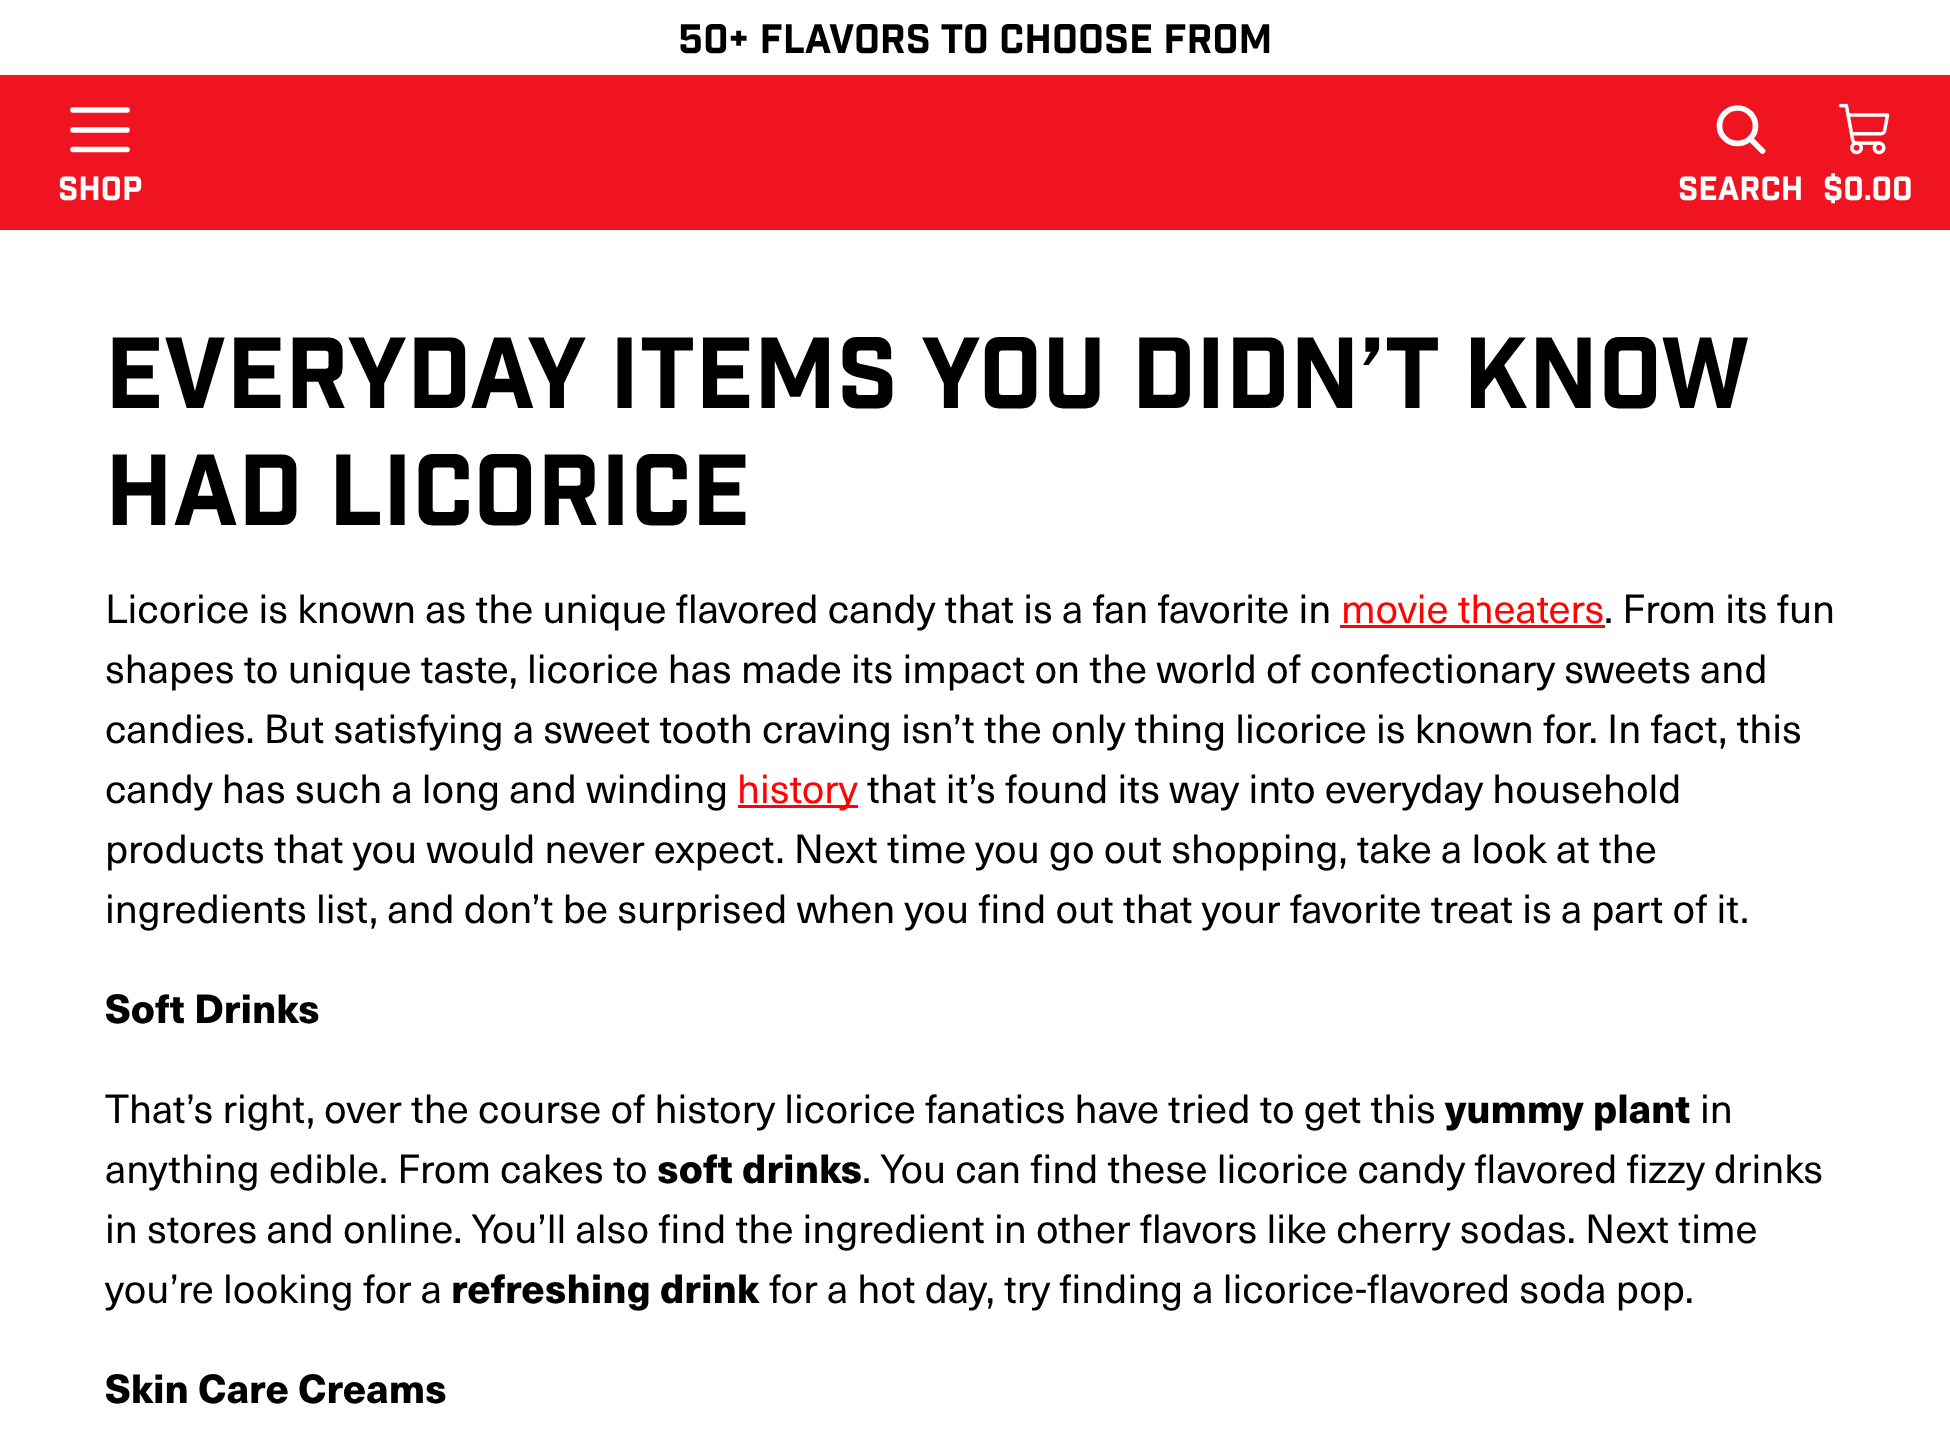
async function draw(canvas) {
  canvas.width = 1950
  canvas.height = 1433
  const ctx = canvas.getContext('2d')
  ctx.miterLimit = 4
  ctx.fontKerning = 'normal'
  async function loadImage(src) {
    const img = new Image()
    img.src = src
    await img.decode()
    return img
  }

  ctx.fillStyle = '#fff'
  ctx.fillRect(0, 0, 1950, 1433)
  ctx.font = '40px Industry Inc'
  ctx.fillStyle = '#000'
  ctx.fillText('50+ Flavors To Choose From', 678, 53)
  ctx.fillStyle = '#f01320'
  ctx.fillRect(0, 75, 1950, 155)
  ctx.beginPath()
  ctx.moveTo(73, 130)
  ctx.lineTo(127, 130)
  ctx.moveTo(73, 110)
  ctx.lineTo(127, 110)
  ctx.moveTo(73, 149.5)
  ctx.lineTo(127, 149.5)
  ctx.strokeStyle = '#fff'
  ctx.lineWidth = 5.6
  ctx.lineCap = 'round'
  ctx.lineJoin = 'round'
  ctx.stroke()
  ctx.font = '32.5px Industry Inc'
  ctx.fillStyle = '#fff'
  ctx.fillText('SHOP', 58, 200)
  ctx.beginPath()
  ctx.moveTo(1737.5, 143.5)
  ctx.bezierCurveTo(1747.5, 143.5, 1755.5, 135.5, 1755.5, 126)
  ctx.bezierCurveTo(1755.5, 116, 1747.5, 108, 1737.5, 108)
  ctx.bezierCurveTo(1727.5, 108, 1719.5, 116, 1719.5, 126)
  ctx.bezierCurveTo(1719.5, 135.5, 1727.5, 143.5, 1737.5, 143.5)
  ctx.closePath()
  ctx.moveTo(1750, 138.5)
  ctx.lineTo(1762.5, 151)
  ctx.lineWidth = 5.7
  ctx.stroke()
  ctx.fillText('SEARCH', 1678, 200)
  ctx.drawImage(await loadImage('image0.png'), 1838, 103, 52, 52)
  ctx.fillText('$0.00', 1823, 200)
  ctx.wordSpacing = '-0.5px'
  ctx.font = '98px Industry Inc'
  ctx.fillStyle = '#000'
  ctx.fillText('Everyday Items You Didn’t Know', 105, 408)
  ctx.wordSpacing = '0px'
  ctx.fillText('Had Licorice', 105, 525)
  ctx.font = '40px "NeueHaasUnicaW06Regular"'
  ctx.fillText('Licorice is known as the unique flavored candy that is a fan favorite in', 105, 623)
  ctx.fillStyle = '#ff0404'
  ctx.fillText('movie theaters', 1341, 623)
  ctx.fillRect(1340, 625, 265, 3)
  ctx.fillStyle = '#000'
  ctx.fillText('. From its fun', 1604, 623)
  ctx.fillText('shapes to unique taste, licorice has made its impact on the world of confectionary sweets and', 105, 683)
  ctx.fillText('candies. But satisfying a sweet tooth craving isn’t the only thing licorice is known for. In fact, this', 105, 743)
  ctx.fillText('candy has such a long and winding', 105, 803)
  ctx.fillStyle = '#ff0404'
  ctx.fillRect(738, 805, 120, 3)
  ctx.fillText('history', 737, 803)
  ctx.fillStyle = '#000'
  ctx.fillText('that it’s found its way into everyday household', 867, 803)
  ctx.fillText('products that you would never expect. Next time you go out shopping, take a look at the', 105, 863)
  ctx.fillText('ingredients list, and don’t be surprised when you find out that your favorite treat is a part of it.', 105, 923)
  ctx.font = '900 40px "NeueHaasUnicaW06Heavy"'
  ctx.fillText('Soft Drinks', 105, 1023)
  ctx.font = '40px "NeueHaasUnicaW06Regular"'
  ctx.fillText('That’s right, over the course of history licorice fanatics have tried to get this', 105, 1123)
  ctx.font = '900 40px "NeueHaasUnicaW06Heavy"'
  ctx.fillText('yummy plant', 1445, 1123)
  ctx.font = '40px "NeueHaasUnicaW06Regular"'
  ctx.fillText('in', 1700, 1123)
  ctx.fillText('anything edible. From cakes to', 105, 1183)
  ctx.font = '900 40px "NeueHaasUnicaW06Heavy"'
  ctx.fillText('soft drinks', 657, 1183)
  ctx.font = '40px "NeueHaasUnicaW06Regular"'
  ctx.fillText('. You can find these licorice candy flavored fizzy drinks', 862, 1183)
  ctx.fillText('in stores and online. You’ll also find the ingredient in other flavors like cherry sodas. Next time', 105, 1243)
  ctx.fillText('you’re looking for a', 105, 1303)
  ctx.font = '900 40px "NeueHaasUnicaW06Heavy"'
  ctx.fillText('refreshing drink', 451, 1303)
  ctx.font = '40px "NeueHaasUnicaW06Regular"'
  ctx.fillText('for a hot day, try finding a licorice-flavored soda pop.', 769, 1303)
  ctx.font = '900 40px "NeueHaasUnicaW06Heavy"'
  ctx.fillText('Skin Care Creams', 105, 1403)
}

draw(document.querySelector('canvas'))
